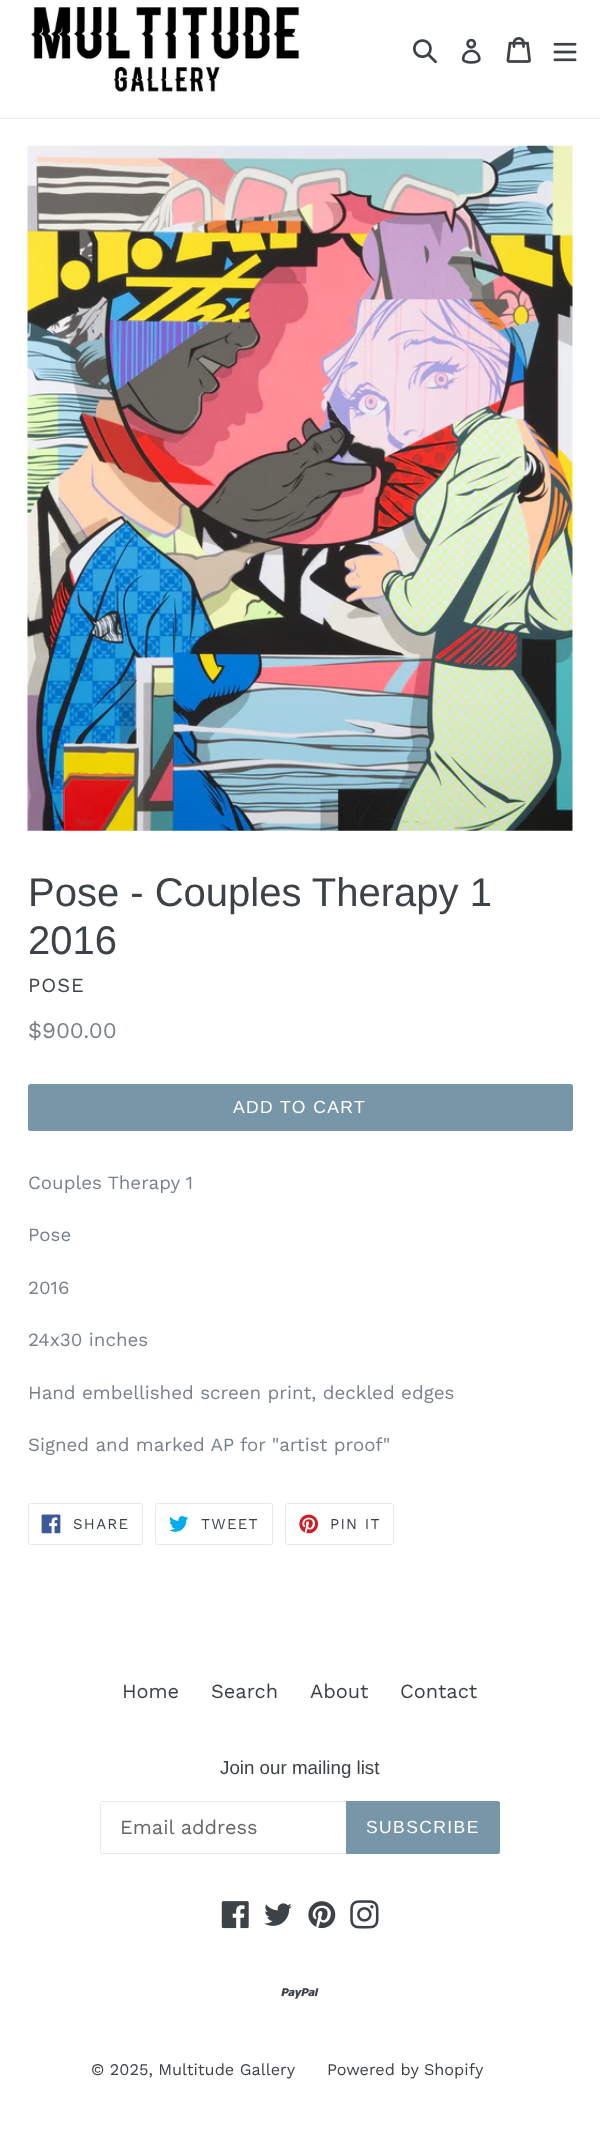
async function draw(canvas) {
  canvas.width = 600
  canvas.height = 2138
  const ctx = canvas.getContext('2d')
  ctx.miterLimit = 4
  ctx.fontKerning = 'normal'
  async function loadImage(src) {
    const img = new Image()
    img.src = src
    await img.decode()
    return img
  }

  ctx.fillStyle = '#fff'
  ctx.fillRect(0, 0, 600, 2138)
  ctx.fillStyle = '#e8e9eb'
  ctx.fillRect(0, 118, 600, 1)
  ctx.drawImage(await loadImage('image0.png'), 31, 7, 269, 85)
  ctx.drawImage(await loadImage('image1.png'), 413, 39, 24, 25)
  ctx.drawImage(await loadImage('image2.png'), 461, 39, 20, 25)
  ctx.drawImage(await loadImage('image3.png'), 506, 37, 25, 26)
  ctx.drawImage(await loadImage('image4.png'), 553, 42, 24, 20)
  ctx.drawImage(await loadImage('image5.png'), 27, 145, 546, 686)
  ctx.font = '40px Liberation Sans'
  ctx.fillStyle = '#3d4246'
  ctx.fillText('Pose - Couples Therapy 1', 28, 906)
  ctx.fillText('2016', 28, 954)
  ctx.letterSpacing = '1px'
  ctx.font = '20px Work Sans'
  ctx.fillText('POSE', 28, 992)
  ctx.letterSpacing = '0px'
  ctx.font = '22.5px Work Sans'
  ctx.fillStyle = '#788188'
  ctx.fillText('$900.00', 28, 1038)
  ctx.fillStyle = '#7796a8'
  ctx.beginPath()
  ctx.roundRect(28, 1084, 545, 47, 2.5)
  ctx.fill()
  ctx.letterSpacing = '1.4px'
  ctx.font = '17.5px Liberation Sans'
  ctx.fillStyle = '#fff'
  ctx.fillText('ADD TO CART', 233, 1113)
  ctx.letterSpacing = '0px'
  ctx.font = '18.75px Work Sans'
  ctx.fillStyle = '#788188'
  ctx.fillText('Couples Therapy 1', 28, 1189)
  ctx.fillText('Pose', 28, 1241)
  ctx.fillText('2016', 28, 1294)
  ctx.fillText('24x30 inches', 28, 1346)
  ctx.fillText('Hand embellished screen print, deckled edges', 28, 1399)
  ctx.fillText('Signed and marked AP for "artist proof"', 28, 1451)
  ctx.beginPath()
  ctx.roundRect(28.5, 1503.5, 114, 41, 2)
  ctx.strokeStyle = '#e8e9eb'
  ctx.stroke()
  ctx.drawImage(await loadImage('image6.png'), 41, 1514, 20, 20)
  ctx.letterSpacing = '1.25px'
  ctx.font = '15px Work Sans'
  ctx.fillStyle = '#3d4246'
  ctx.fillText('SHARE', 73, 1529)
  ctx.beginPath()
  ctx.roundRect(155.5, 1503.5, 117, 41, 2)
  ctx.stroke()
  ctx.drawImage(await loadImage('image7.png'), 169, 1516, 20, 16)
  ctx.fillText('TWEET', 201, 1529)
  ctx.beginPath()
  ctx.roundRect(285.5, 1503.5, 108, 41, 2)
  ctx.stroke()
  ctx.drawImage(await loadImage('image8.png'), 299, 1514, 20, 20)
  ctx.fillText('PIN IT', 330, 1529)
  ctx.letterSpacing = '0px'
  ctx.font = '20px Work Sans'
  ctx.fillText('Home', 122, 1698)
  ctx.fillText('Search', 211, 1698)
  ctx.fillText('About', 310, 1698)
  ctx.fillText('Contact', 400, 1698)
  ctx.font = '18.75px Liberation Sans'
  ctx.fillText('Join our mailing list', 220, 1774)
  ctx.fillStyle = '#e8e9eb'
  ctx.fillRect(101, 1801, 245, 1)
  ctx.fillRect(101, 1853, 245, 1)
  ctx.fillRect(100, 1803, 1, 50)
  ctx.font = '20px Work Sans'
  ctx.fillStyle = '#666'
  ctx.fillText('Email address', 120, 1834)
  ctx.fillStyle = '#7796a8'
  ctx.beginPath()
  ctx.roundRect(346, 1801, 154, 53, [0, 2.5, 2.5, 0])
  ctx.fill()
  ctx.letterSpacing = '1.4px'
  ctx.font = '17.5px Liberation Sans'
  ctx.fillStyle = '#fff'
  ctx.fillText('SUBSCRIBE', 366, 1833)
  ctx.drawImage(await loadImage('image9.png'), 221, 1901, 28, 28)
  ctx.drawImage(await loadImage('image10.png'), 264, 1903, 28, 23)
  ctx.drawImage(await loadImage('image11.png'), 308, 1901, 28, 28)
  ctx.drawImage(await loadImage('image12.png'), 350, 1900, 29, 29)
  ctx.drawImage(await loadImage('image13.png'), 281, 1988, 38, 11)
  ctx.letterSpacing = '0px'
  ctx.font = '16.25px Work Sans'
  ctx.fillStyle = '#3d4246'
  ctx.fillText('© 2025, Multitude Gallery', 91, 2075)
  ctx.fillText('Powered by Shopify', 327, 2075)
}

draw(document.querySelector('canvas'))
